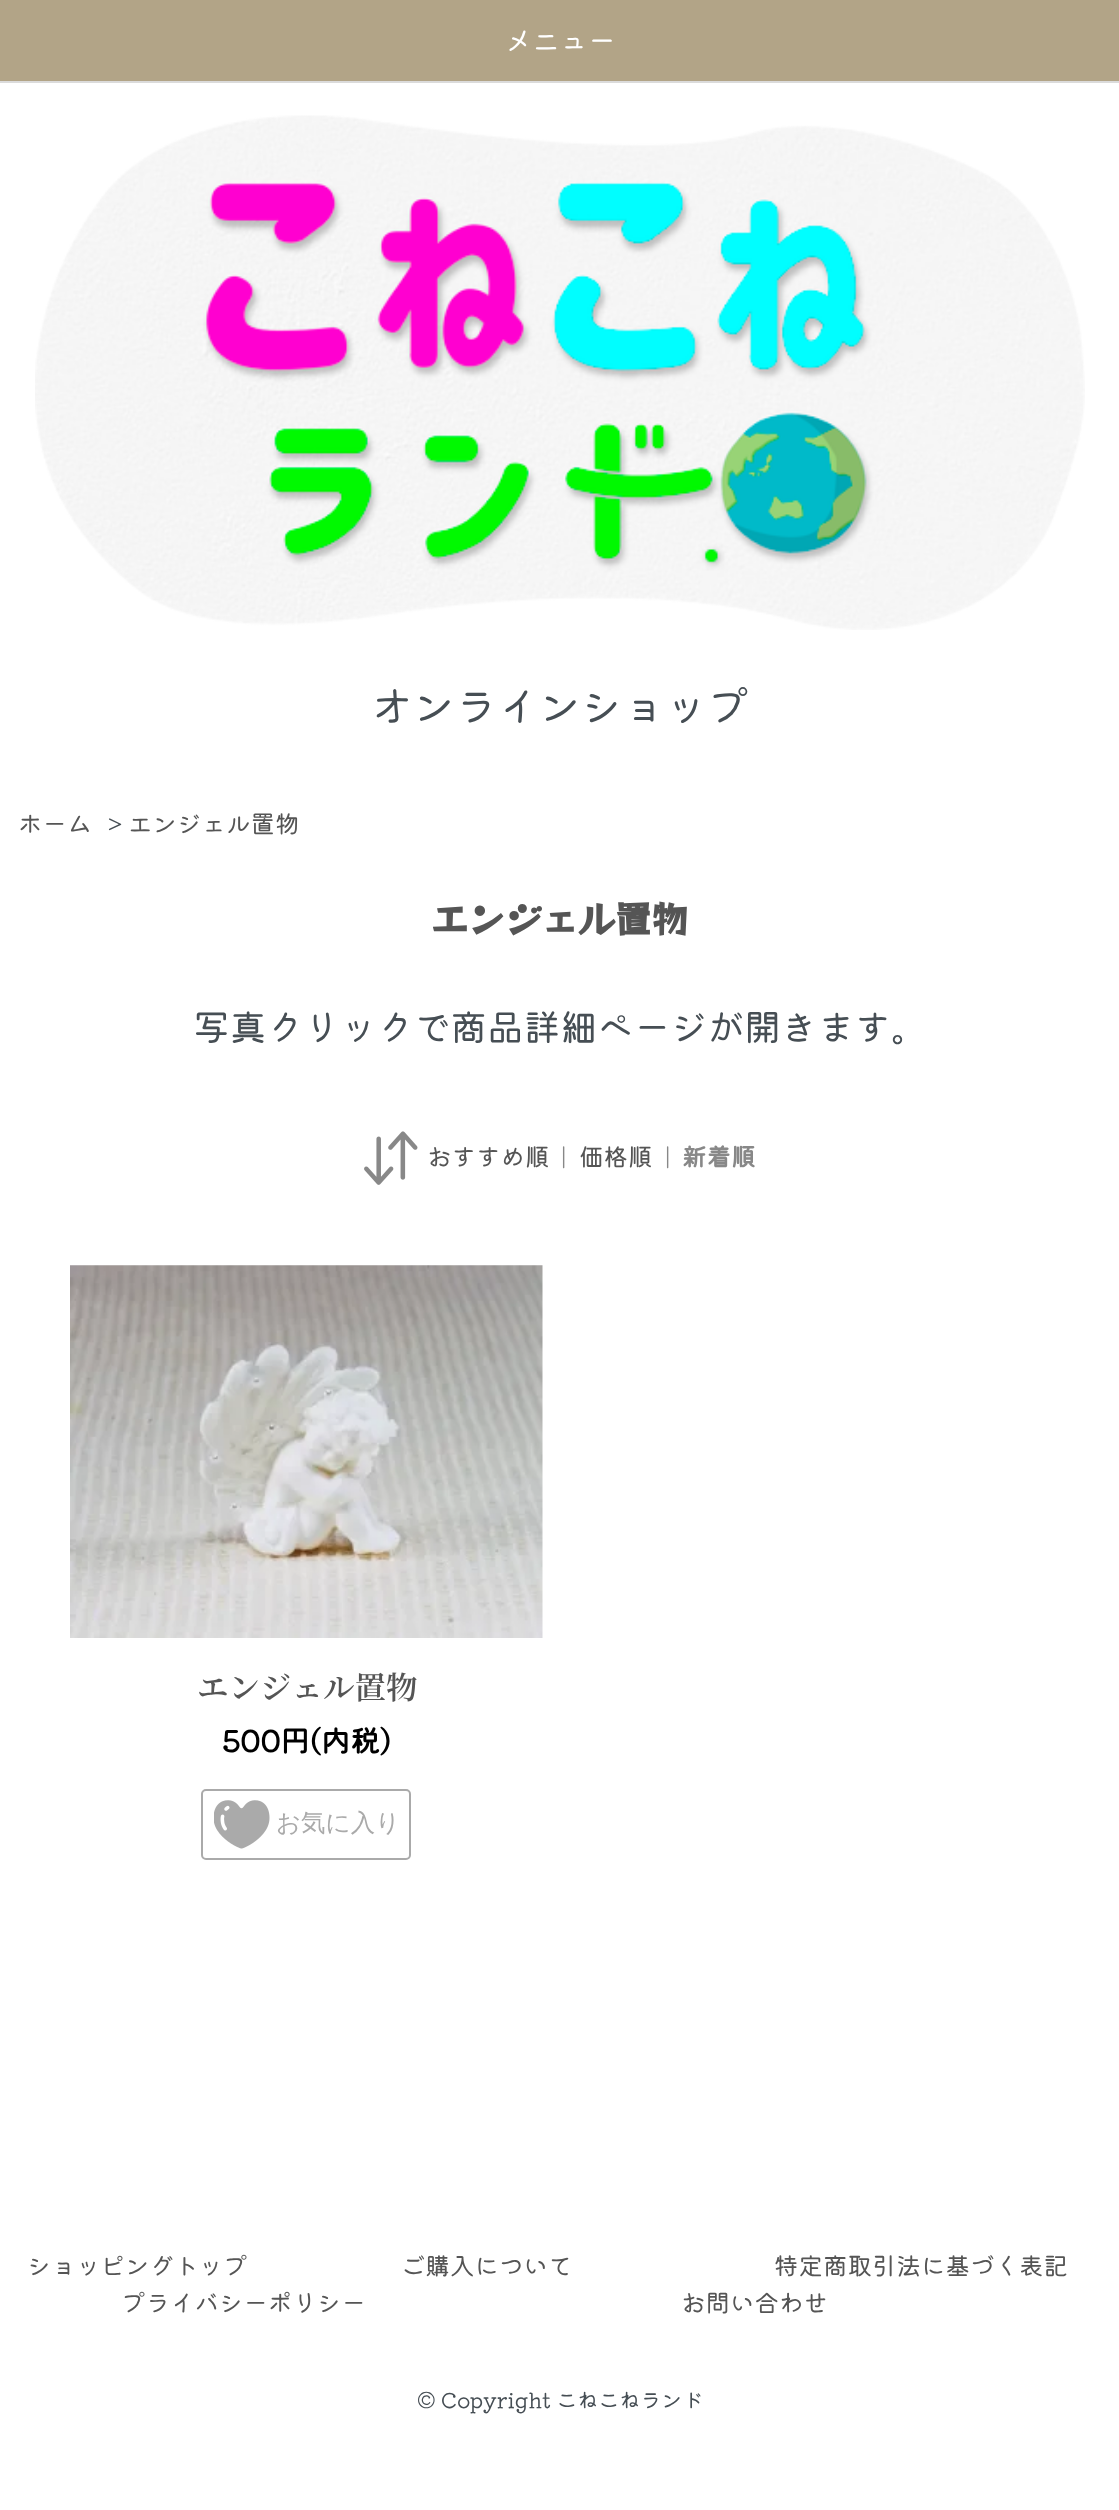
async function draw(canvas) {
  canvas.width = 1119
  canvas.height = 2510
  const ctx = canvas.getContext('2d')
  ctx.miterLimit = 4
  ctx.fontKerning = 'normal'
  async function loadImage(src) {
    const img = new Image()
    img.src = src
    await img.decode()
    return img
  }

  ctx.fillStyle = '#fff'
  ctx.fillRect(0, 0, 1119, 2510)
  ctx.fillStyle = '#dbdbdb'
  ctx.fillRect(0, 81, 1119, 2)
  ctx.fillStyle = '#b2a487'
  ctx.fillRect(0, 0, 1119, 81)
  ctx.font = '28px Kiwi Maru'
  ctx.fillStyle = '#fff'
  ctx.fillText('メニュー', 504, 51)
  ctx.drawImage(await loadImage('image0.png'), 35, 115, 1050, 515)
  ctx.font = '42px Kiwi Maru'
  ctx.fillStyle = '#464e54'
  ctx.fillText('オンラインショップ', 371, 722)
  ctx.font = '24.5px Kiwi Maru'
  ctx.fillStyle = '#555'
  ctx.fillText('ホーム', 18, 833)
  ctx.fillStyle = '#464e54'
  ctx.fillText('>', 108, 833)
  ctx.fillStyle = '#555'
  ctx.fillText('エンジェル置物', 128, 833)
  ctx.font = 'bold 36.75px RocknRoll One'
  ctx.fillText('エンジェル置物', 431, 933)
  ctx.font = '36.75px Kiwi Maru'
  ctx.fillStyle = '#464e54'
  ctx.fillText('写真クリックで商品詳細ページが開きます。', 193, 1041)
  ctx.drawImage(await loadImage('image1.png'), 364, 1131, 54, 54)
  ctx.font = '24.5px Kiwi Maru'
  ctx.fillStyle = '#555'
  ctx.fillText('おすすめ順', 427, 1166)
  ctx.fillStyle = '#888'
  ctx.fillText('|', 561, 1166)
  ctx.fillStyle = '#555'
  ctx.fillText('価格順', 579, 1166)
  ctx.fillStyle = '#888'
  ctx.fillText('|', 665, 1166)
  ctx.font = 'bold 24.5px Kiwi Maru'
  ctx.fillText('新着順', 682, 1166)
  ctx.drawImage(await loadImage('image2.png'), 70, 1265, 473, 373)
  ctx.font = '600 31.5px Noto Serif JP'
  ctx.fillStyle = '#555'
  ctx.fillText('エンジェル置物', 197, 1699)
  ctx.font = 'bold 29.5px Kiwi Maru'
  ctx.fillStyle = '#000'
  ctx.fillText('500円(内税)', 222, 1752)
  ctx.beginPath()
  ctx.roundRect(202, 1790, 208, 69, 4)
  ctx.strokeStyle = '#aaa'
  ctx.lineWidth = 2
  ctx.stroke()
  ctx.drawImage(await loadImage('image3.png'), 214, 1800, 56, 49)
  ctx.font = '500 24.5px WenQuanYi Zen Hei'
  ctx.fillStyle = '#aaa'
  ctx.fillText('お気に入り', 276, 1831)
  ctx.font = '24.5px Kiwi Maru'
  ctx.fillStyle = '#555'
  ctx.fillText('ショッピングトップ', 27, 2275)
  ctx.fillText('ご購入について', 401, 2275)
  ctx.fillText('特定商取引法に基づく表記', 774, 2275)
  ctx.fillText('プライバシーポリシー', 121, 2312)
  ctx.fillText('お問い合わせ', 681, 2312)
  ctx.font = '21px Kiwi Maru'
  ctx.fillStyle = '#464e54'
  ctx.fillText('© Copyright こねこねランド', 417, 2408)
}

draw(document.querySelector('canvas'))
